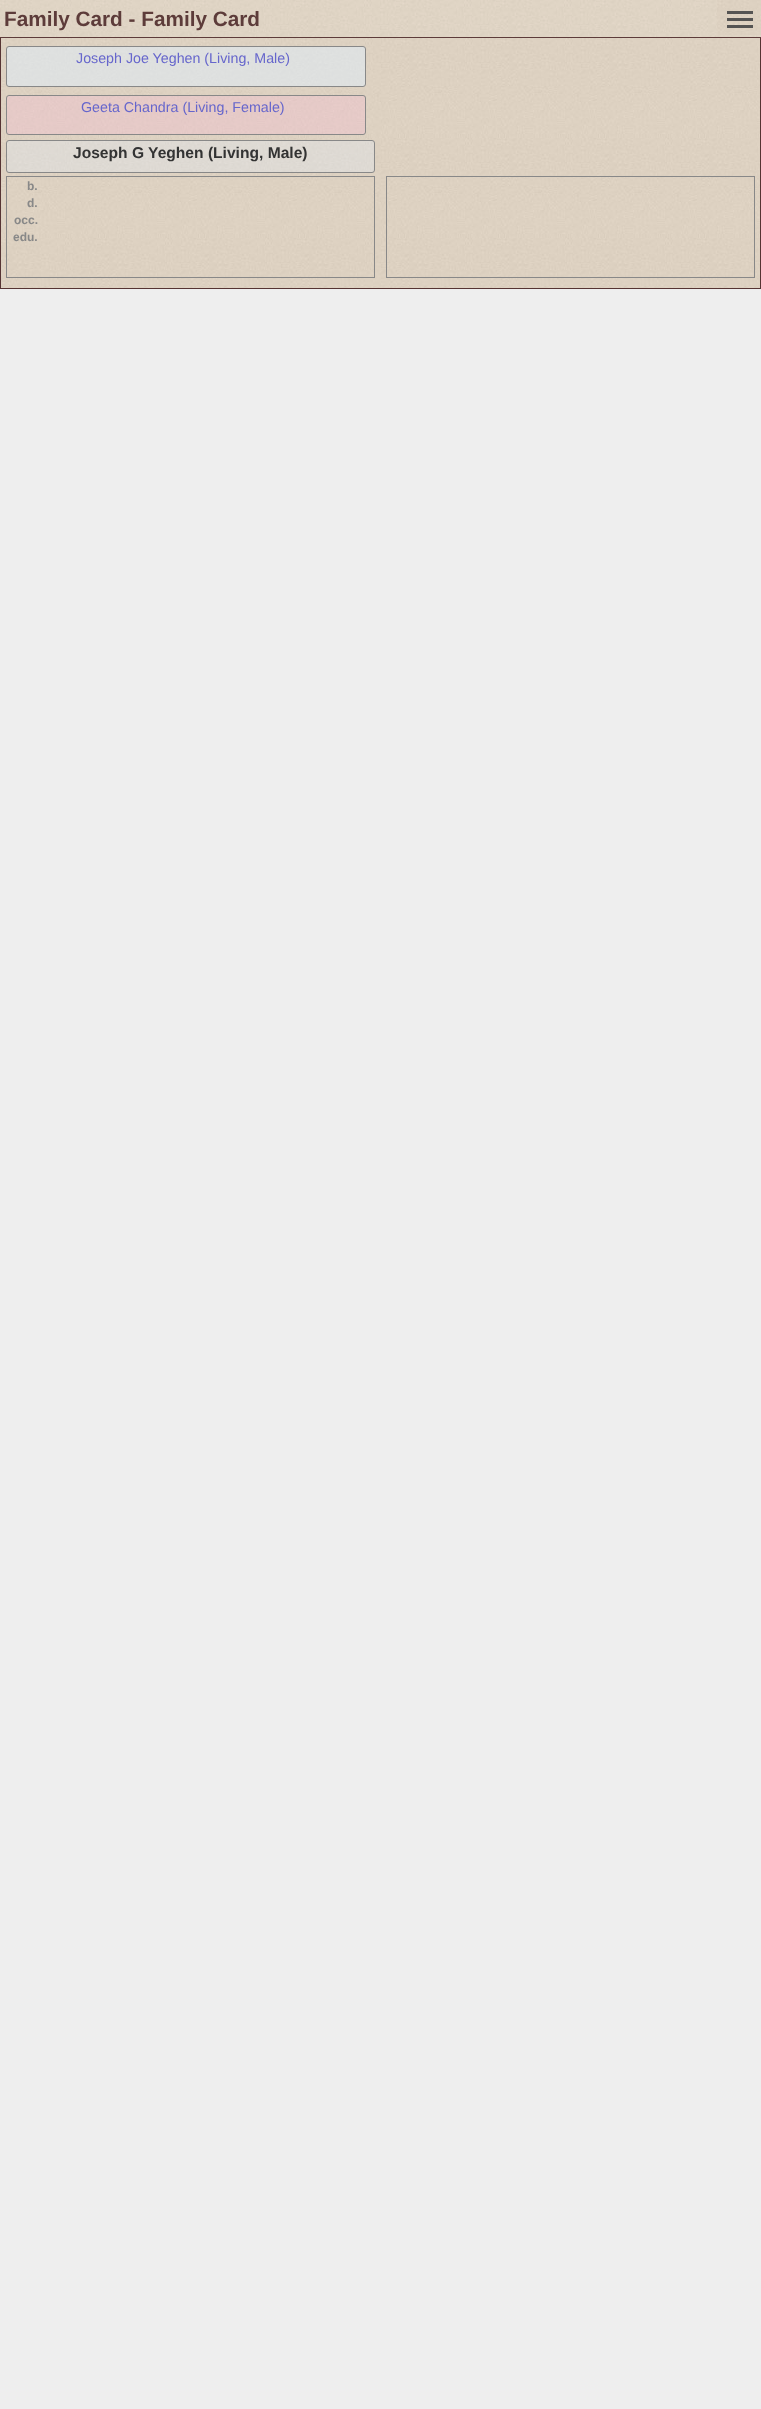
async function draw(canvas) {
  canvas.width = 761
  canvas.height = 2409
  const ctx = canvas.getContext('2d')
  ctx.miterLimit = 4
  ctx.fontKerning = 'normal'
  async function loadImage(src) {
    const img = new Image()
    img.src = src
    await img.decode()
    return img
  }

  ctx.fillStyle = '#eee'
  ctx.fillRect(0, 0, 761, 2409)
  ctx.drawImage(await loadImage('image3.png'), 1, 38, 759, 250)
  ctx.strokeStyle = '#563433'
  ctx.strokeRect(0.5, 37.5, 760, 251)
  ctx.drawImage(await loadImage('image0.png'), 0, 0, 761, 38)
  ctx.fillStyle = '#563433f2'
  ctx.fillRect(0, 37, 761, 1)
  ctx.font = 'bold 20.75px Liberation Sans'
  ctx.fillStyle = '#5d3c3a'
  ctx.fillText('Family Card - Family Card', 4, 26)
  ctx.drawImage(await loadImage('image1.png'), 717, 0, 44, 35)
  ctx.drawImage(await loadImage('image2.png'), 727, 11, 26, 17)
  ctx.fillStyle = '#e0effe82'
  ctx.beginPath()
  ctx.roundRect(6.5, 46.5, 359, 40, 2.5)
  ctx.fill()
  ctx.strokeStyle = '#888'
  ctx.stroke()
  ctx.font = '14.25px Liberation Sans'
  ctx.fillStyle = '#66c'
  ctx.fillText('Joseph Joe Yeghen (Living, Male)', 76, 63)
  ctx.fillStyle = '#fcb7d647'
  ctx.beginPath()
  ctx.roundRect(6.5, 95.5, 359, 39, 2.5)
  ctx.fill()
  ctx.stroke()
  ctx.fillStyle = '#66c'
  ctx.fillText('Geeta Chandra (Living, Female)', 81, 112)
  ctx.fillStyle = '#e0effe4d'
  ctx.beginPath()
  ctx.roundRect(6.5, 140.5, 368, 32, 2.5)
  ctx.fill()
  ctx.stroke()
  ctx.font = 'bold 15.6px Liberation Sans'
  ctx.fillStyle = '#333'
  ctx.fillText('Joseph G Yeghen (Living, Male)', 73, 158)
  ctx.strokeRect(6.5, 176.5, 368, 101)
  ctx.font = 'bold 12px Liberation Sans'
  ctx.fillStyle = '#888'
  ctx.fillText('b.', 27, 190)
  ctx.fillText('d.', 27, 207)
  ctx.fillText('occ.', 14, 224)
  ctx.fillText('edu.', 13, 241)
  ctx.strokeRect(386.5, 176.5, 368, 101)
}

draw(document.querySelector('canvas'))
